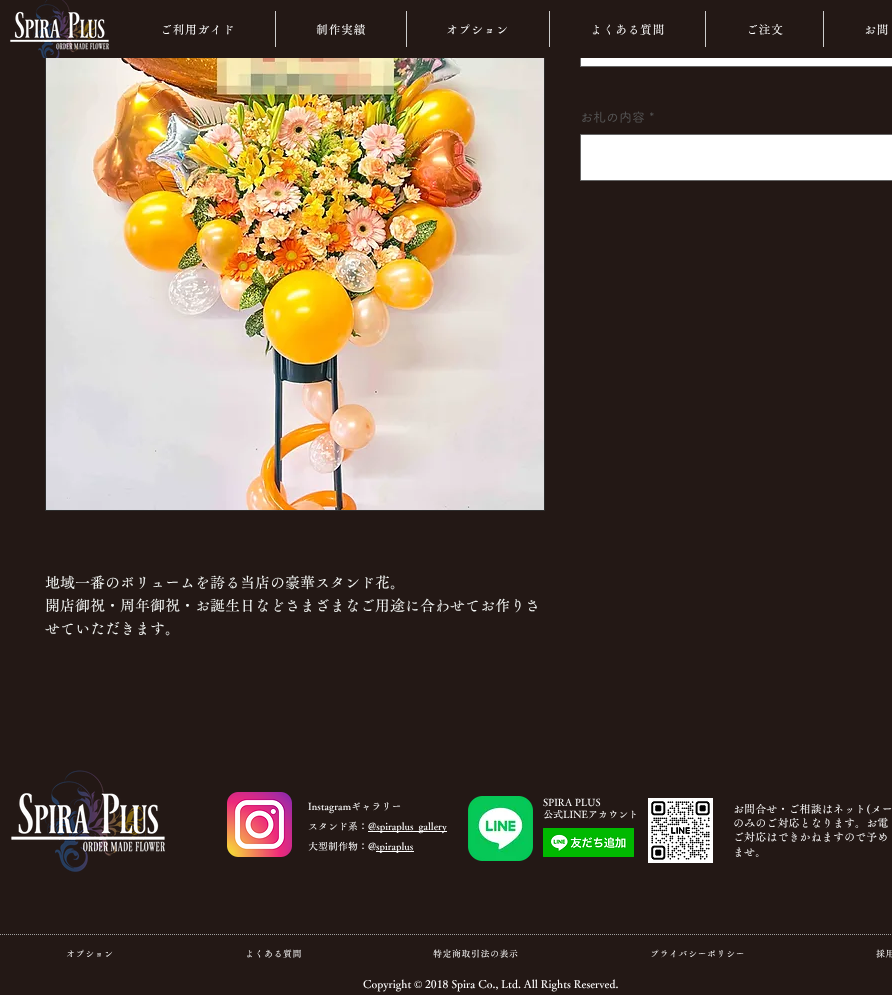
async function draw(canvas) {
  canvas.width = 892
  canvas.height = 995
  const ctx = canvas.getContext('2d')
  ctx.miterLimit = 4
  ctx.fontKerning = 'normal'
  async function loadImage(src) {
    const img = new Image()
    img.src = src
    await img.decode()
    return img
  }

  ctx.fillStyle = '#231815'
  ctx.fillRect(0, 0, 892, 995)
  ctx.fillStyle = '#fff'
  ctx.fillRect(581, 58, 311, 8)
  ctx.strokeStyle = '#666'
  ctx.strokeRect(580.5, 20.5, 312, 46)
  ctx.strokeStyle = '#2e2e2e'
  ctx.strokeRect(45.5, -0.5, 499, 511)
  ctx.fillStyle = '#231815'
  ctx.fillRect(45, 0, 847, 58)
  ctx.drawImage(await loadImage('image0.png'), 10, 0, 99, 58)
  ctx.fillStyle = '#ccc'
  ctx.fillRect(275, 11, 1, 36)
  ctx.letterSpacing = '0.5px'
  ctx.font = '500 12px "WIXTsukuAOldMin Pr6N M"'
  ctx.fillStyle = '#fff'
  ctx.fillText('ご利用ガイド', 160, 34)
  ctx.fillStyle = '#ccc'
  ctx.fillRect(406, 11, 1, 36)
  ctx.fillStyle = '#fff'
  ctx.fillText('制作実績', 316, 34)
  ctx.fillStyle = '#ccc'
  ctx.fillRect(549, 11, 1, 36)
  ctx.fillStyle = '#fff'
  ctx.fillText('オプション', 446, 34)
  ctx.fillStyle = '#ccc'
  ctx.fillRect(705, 11, 1, 36)
  ctx.fillStyle = '#fff'
  ctx.fillText('よくある質問', 590, 34)
  ctx.fillStyle = '#ccc'
  ctx.fillRect(823, 11, 1, 36)
  ctx.fillStyle = '#fff'
  ctx.fillText('ご注文', 746, 34)
  ctx.fillText('お問', 864, 34)
  ctx.letterSpacing = '0px'
  ctx.font = '500 13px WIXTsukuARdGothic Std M'
  ctx.fillStyle = '#565656'
  ctx.fillText('お札の内容 *', 580, 122)
  ctx.fillStyle = '#fff'
  ctx.beginPath()
  ctx.rect(580.5, 134.5, 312, 46)
  ctx.fill()
  ctx.strokeStyle = '#666'
  ctx.stroke()
  ctx.drawImage(await loadImage('image1.png'), 46, 58, 498, 452)
  ctx.font = '500 15px "WIXTsukuAOldMin Pr6N M"'
  ctx.fillStyle = '#f3f6f4'
  ctx.fillText('地域一番のボリュームを誇る当店の豪華スタンド花。', 45, 588)
  ctx.fillText('開店御祝・周年御祝・お誕生日などさまざまなご用途に合わせてお作りさ', 45, 611)
  ctx.fillText('せていただきます。', 45, 634)
  ctx.drawImage(await loadImage('image2.png'), 11, 770, 154, 102)
  ctx.drawImage(await loadImage('image3.png'), 227, 792, 65, 65)
  ctx.letterSpacing = '0.1px'
  ctx.font = '500 10px "WIXTsukuAOldMin Pr6N M"'
  ctx.fillStyle = '#fff'
  ctx.fillText('Instagramギャラリー', 308, 810)
  ctx.letterSpacing = '0px'
  ctx.fillText('スタンド系：', 308, 830)
  ctx.fillRect(368, 831, 79, 1)
  ctx.fillText('@spiraplus_gallery', 368, 830)
  ctx.fillText('大型制作物：@', 308, 850)
  ctx.fillRect(376, 851, 38, 1)
  ctx.fillText('spiraplus', 376, 850)
  ctx.drawImage(await loadImage('image4.png'), 468, 796, 65, 65)
  ctx.letterSpacing = '0.1px'
  ctx.fillText('SPIRA PLUS', 543, 806)
  ctx.fillText('公式LINEアカウント', 543, 818)
  ctx.drawImage(await loadImage('image5.png'), 648, 798, 65, 65)
  ctx.font = '500 11px "WIXTsukuAOldMin Pr6N M"'
  ctx.fillText('お問合せ・ご相談はネット(メー', 733, 813)
  ctx.fillText('のみのご対応となります。お電', 733, 827)
  ctx.fillText('ご対応はできかねますので予め', 733, 841)
  ctx.fillText('ませ。', 733, 856)
  ctx.drawImage(await loadImage('image6.png'), 543, 828, 91, 29)
  ctx.beginPath()
  ctx.moveTo(0, 934.5)
  ctx.lineTo(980, 934.5)
  ctx.strokeStyle = '#a0a09f'
  ctx.setLineDash([1, 1])
  ctx.stroke()
  ctx.letterSpacing = '0.5px'
  ctx.font = '500 9px "WIXTsukuAOldMin Pr6N M"'
  ctx.fillText('オプション', 66, 957)
  ctx.fillText('よくある質問', 245, 957)
  ctx.fillText('特定商取引法の表示', 433, 957)
  ctx.fillText('プライバシーポリシー', 650, 957)
  ctx.fillText('採用', 876, 957)
  ctx.letterSpacing = '0px'
  ctx.font = '500 11px "WIXTsukuAOldMin Pr6N M"'
  ctx.fillText('Copyright', 363, 988)
  ctx.font = '11px Liberation Serif'
  ctx.fillText('©', 414, 988)
  ctx.font = '500 11px "WIXTsukuAOldMin Pr6N M"'
  ctx.fillText('2018 Spira Co., Ltd. All Rights Reserved.', 425, 988)
}

draw(document.querySelector('canvas'))
